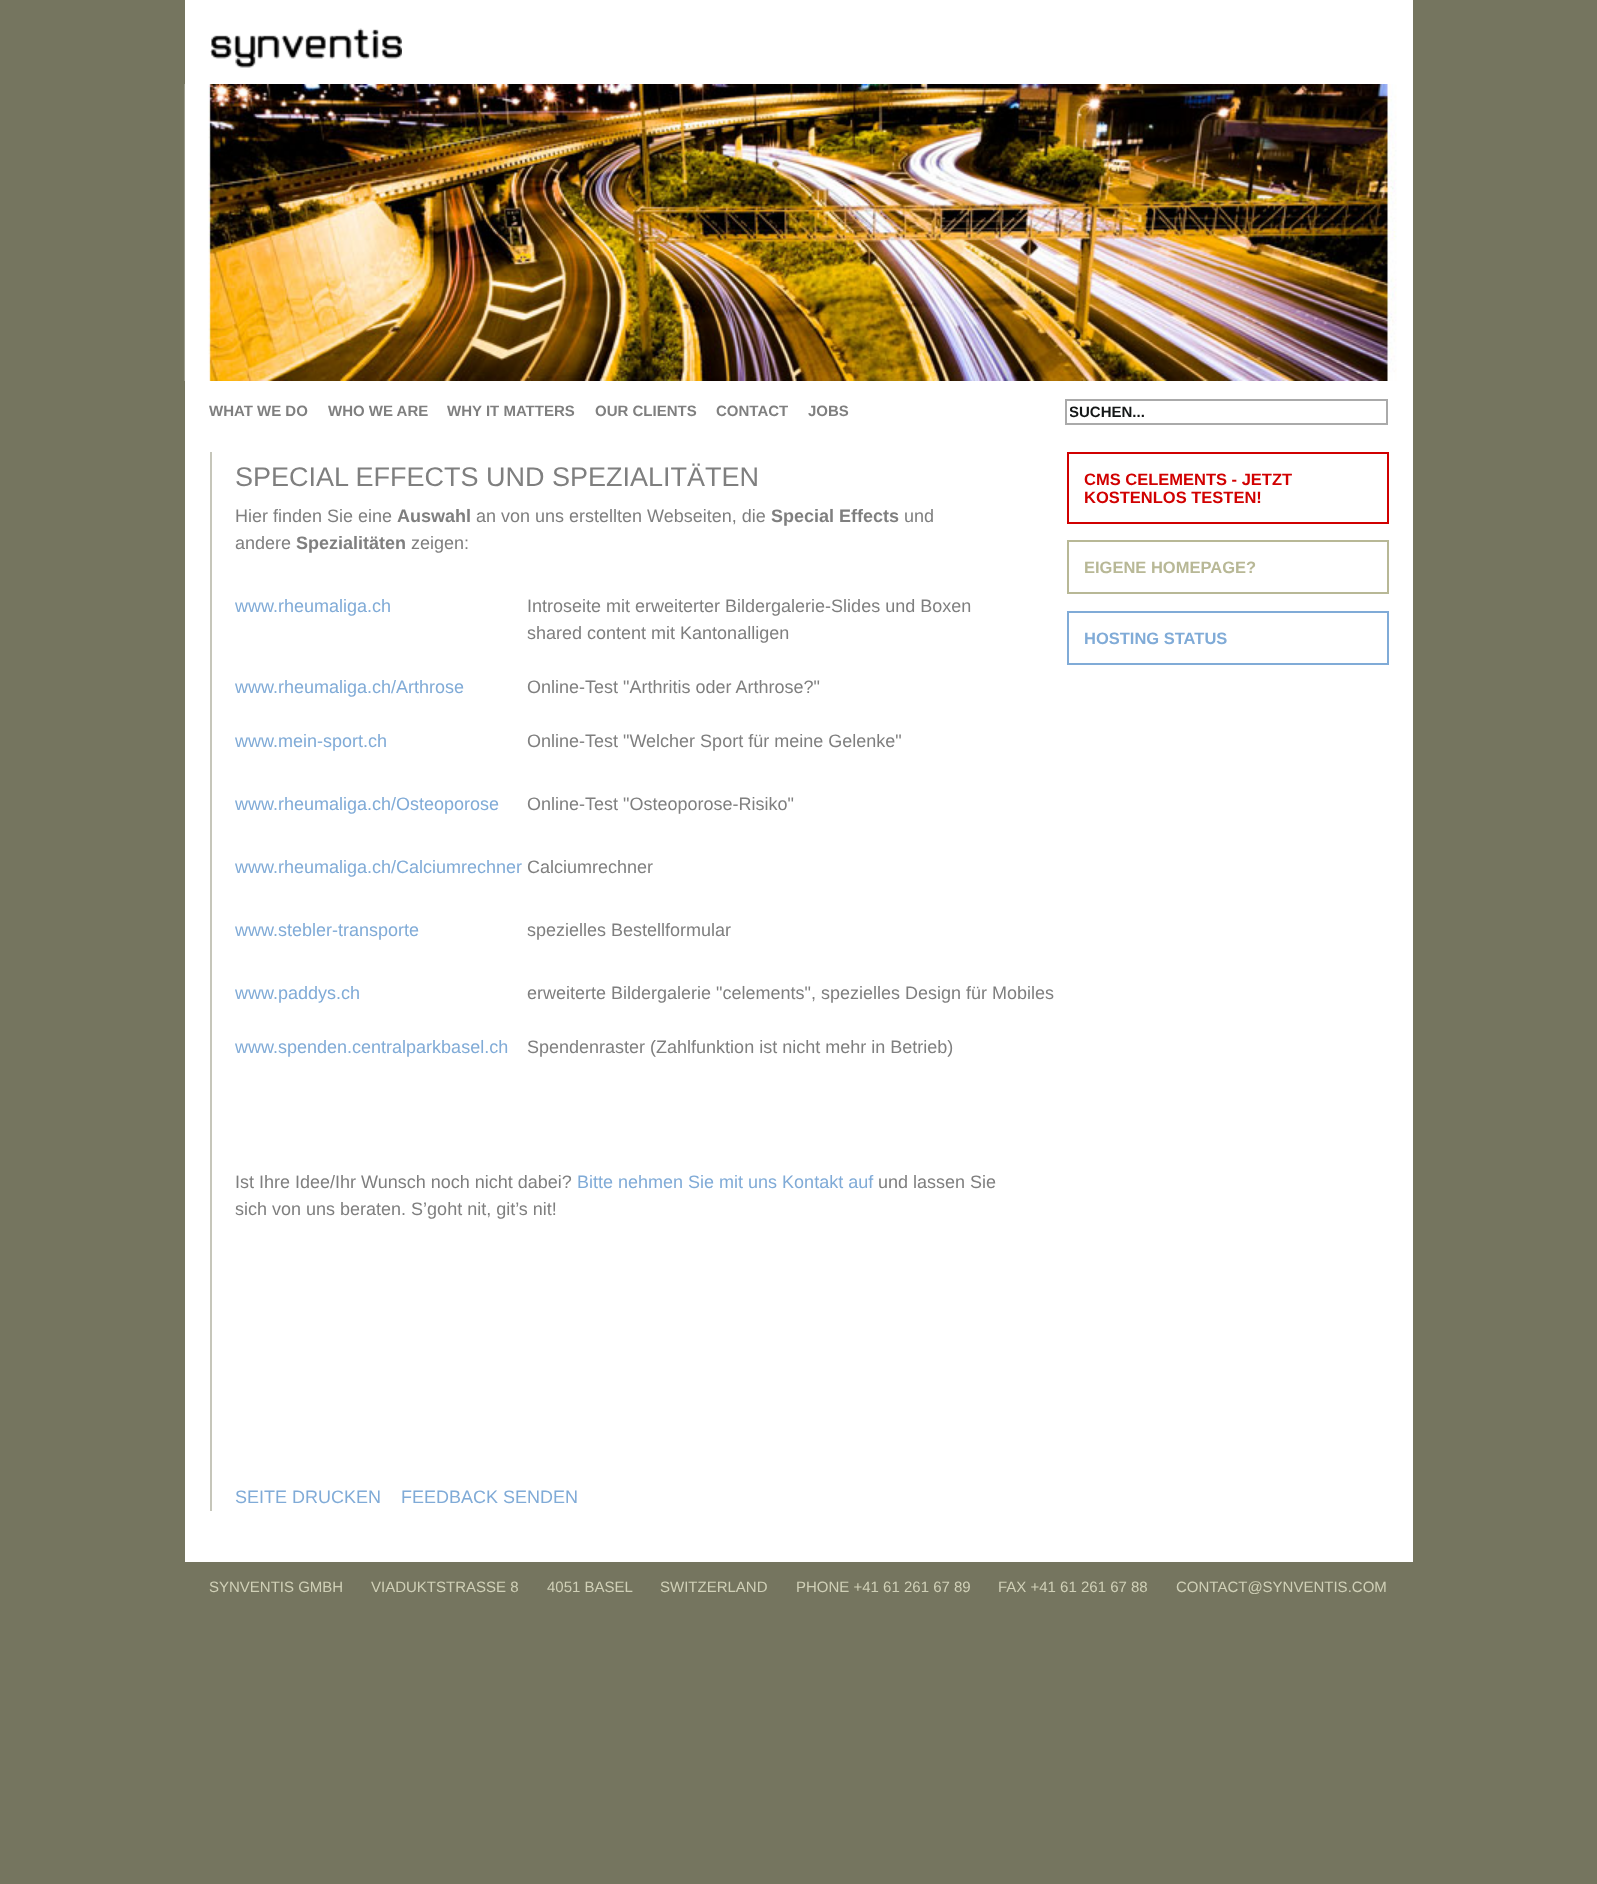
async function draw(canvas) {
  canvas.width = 1597
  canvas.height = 1884
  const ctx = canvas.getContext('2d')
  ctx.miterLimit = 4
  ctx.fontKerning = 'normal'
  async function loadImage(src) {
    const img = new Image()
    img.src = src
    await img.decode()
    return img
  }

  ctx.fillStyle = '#75755f'
  ctx.fillRect(0, 0, 1597, 1884)
  ctx.fillStyle = '#fff'
  ctx.fillRect(185, 0, 1228, 1562)
  ctx.drawImage(await loadImage('image0.png'), 210, 28, 192, 40)
  ctx.drawImage(await loadImage('image1.png'), 184, 84, 1213, 297)
  ctx.font = 'bold 15px Liberation Sans'
  ctx.fillStyle = '#7f7f7f'
  ctx.fillText('WHAT WE DO', 209, 416)
  ctx.fillText('WHO WE ARE', 328, 416)
  ctx.fillText('WHY IT MATTERS', 447, 416)
  ctx.fillText('OUR CLIENTS', 595, 416)
  ctx.fillText('CONTACT', 716, 416)
  ctx.fillText('JOBS', 808, 416)
  ctx.strokeStyle = '#aaa'
  ctx.lineWidth = 2
  ctx.strokeRect(1066, 400, 321, 24)
  ctx.save()
  ctx.beginPath()
  ctx.rect(1070, 404, 313, 16)
  ctx.clip()
  ctx.fillStyle = '#141717'
  ctx.fillText('SUCHEN...', 1069, 417)
  ctx.restore()
  ctx.fillStyle = '#c6c6ba'
  ctx.fillRect(210, 452, 2, 1059)
  ctx.font = '27px Liberation Sans'
  ctx.fillStyle = '#7f7f7f'
  ctx.fillText('SPECIAL EFFECTS UND SPEZIALITÄTEN', 235, 486)
  ctx.font = '18px Liberation Sans'
  ctx.fillText('Hier finden Sie eine', 235, 522)
  ctx.font = 'bold 18px Liberation Sans'
  ctx.fillText('Auswahl', 397, 522)
  ctx.font = '18px Liberation Sans'
  ctx.fillText('an von uns erstellten Webseiten, die', 476, 522)
  ctx.font = 'bold 18px Liberation Sans'
  ctx.fillText('Special Effects', 771, 522)
  ctx.font = '18px Liberation Sans'
  ctx.fillText('und', 904, 522)
  ctx.fillText('andere', 235, 549)
  ctx.font = 'bold 18px Liberation Sans'
  ctx.fillText('Spezialitäten', 296, 549)
  ctx.font = '18px Liberation Sans'
  ctx.fillText('zeigen:', 411, 549)
  ctx.fillStyle = '#80abd7'
  ctx.fillText('www.rheumaliga.ch', 235, 612)
  ctx.fillStyle = '#7f7f7f'
  ctx.fillText('Introseite mit erweiterter Bildergalerie-Slides und Boxen', 527, 612)
  ctx.fillText('shared content mit Kantonalligen', 527, 639)
  ctx.fillStyle = '#80abd7'
  ctx.fillText('www.rheumaliga.ch/Arthrose', 235, 693)
  ctx.fillStyle = '#7f7f7f'
  ctx.fillText('Online-Test "Arthritis oder Arthrose?"', 527, 693)
  ctx.fillStyle = '#80abd7'
  ctx.fillText('www.mein-sport.ch', 235, 747)
  ctx.fillStyle = '#7f7f7f'
  ctx.fillText('Online-Test "Welcher Sport für meine Gelenke"', 527, 747)
  ctx.fillStyle = '#80abd7'
  ctx.fillText('www.rheumaliga.ch/Osteoporose', 235, 810)
  ctx.fillStyle = '#7f7f7f'
  ctx.fillText('Online-Test "Osteoporose-Risiko"', 527, 810)
  ctx.fillStyle = '#80abd7'
  ctx.fillText('www.rheumaliga.ch/Calciumrechner', 235, 873)
  ctx.fillStyle = '#7f7f7f'
  ctx.fillText('Calciumrechner', 527, 873)
  ctx.fillStyle = '#80abd7'
  ctx.fillText('www.stebler-transporte', 235, 936)
  ctx.fillStyle = '#7f7f7f'
  ctx.fillText('spezielles Bestellformular', 527, 936)
  ctx.fillStyle = '#80abd7'
  ctx.fillText('www.paddys.ch', 235, 999)
  ctx.fillStyle = '#7f7f7f'
  ctx.fillText('erweiterte Bildergalerie "celements", spezielles Design für Mobiles', 527, 999)
  ctx.fillStyle = '#80abd7'
  ctx.fillText('www.spenden.centralparkbasel.ch', 235, 1053)
  ctx.fillStyle = '#7f7f7f'
  ctx.fillText('Spendenraster (Zahlfunktion ist nicht mehr in Betrieb)', 527, 1053)
  ctx.fillText('Ist Ihre Idee/Ihr Wunsch noch nicht dabei?', 235, 1188)
  ctx.fillStyle = '#80abd7'
  ctx.fillText('Bitte nehmen Sie mit uns Kontakt auf', 577, 1188)
  ctx.fillStyle = '#7f7f7f'
  ctx.fillText('und lassen Sie', 878, 1188)
  ctx.fillText('sich von uns beraten. S’goht nit, git’s nit!', 235, 1215)
  ctx.fillStyle = '#80abd7'
  ctx.fillText('SEITE DRUCKEN', 235, 1503)
  ctx.fillText('FEEDBACK SENDEN', 401, 1503)
  ctx.strokeStyle = '#d10000'
  ctx.strokeRect(1068, 453, 320, 70)
  ctx.font = 'bold 16.5px Liberation Sans'
  ctx.fillStyle = '#d10000'
  ctx.fillText('CMS CELEMENTS - JETZT', 1084, 485)
  ctx.fillText('KOSTENLOS TESTEN!', 1084, 503)
  ctx.strokeStyle = '#b8b896'
  ctx.strokeRect(1068, 541, 320, 52)
  ctx.fillStyle = '#b8b896'
  ctx.fillText('EIGENE HOMEPAGE?', 1084, 573)
  ctx.strokeStyle = '#80abd7'
  ctx.strokeRect(1068, 612, 320, 52)
  ctx.fillStyle = '#80abd7'
  ctx.fillText('HOSTING STATUS', 1084, 644)
  ctx.font = '15px Liberation Sans'
  ctx.fillStyle = '#d0d0b7'
  ctx.fillText('SYNVENTIS GMBH', 209, 1592)
  ctx.fillText('VIADUKTSTRASSE 8', 371, 1592)
  ctx.fillText('4051 BASEL', 547, 1592)
  ctx.fillText('SWITZERLAND', 660, 1592)
  ctx.fillText('PHONE +41 61 261 67 89', 796, 1592)
  ctx.fillText('FAX +41 61 261 67 88', 998, 1592)
  ctx.fillText('CONTACT@SYNVENTIS.COM', 1176, 1592)
}

draw(document.querySelector('canvas'))
